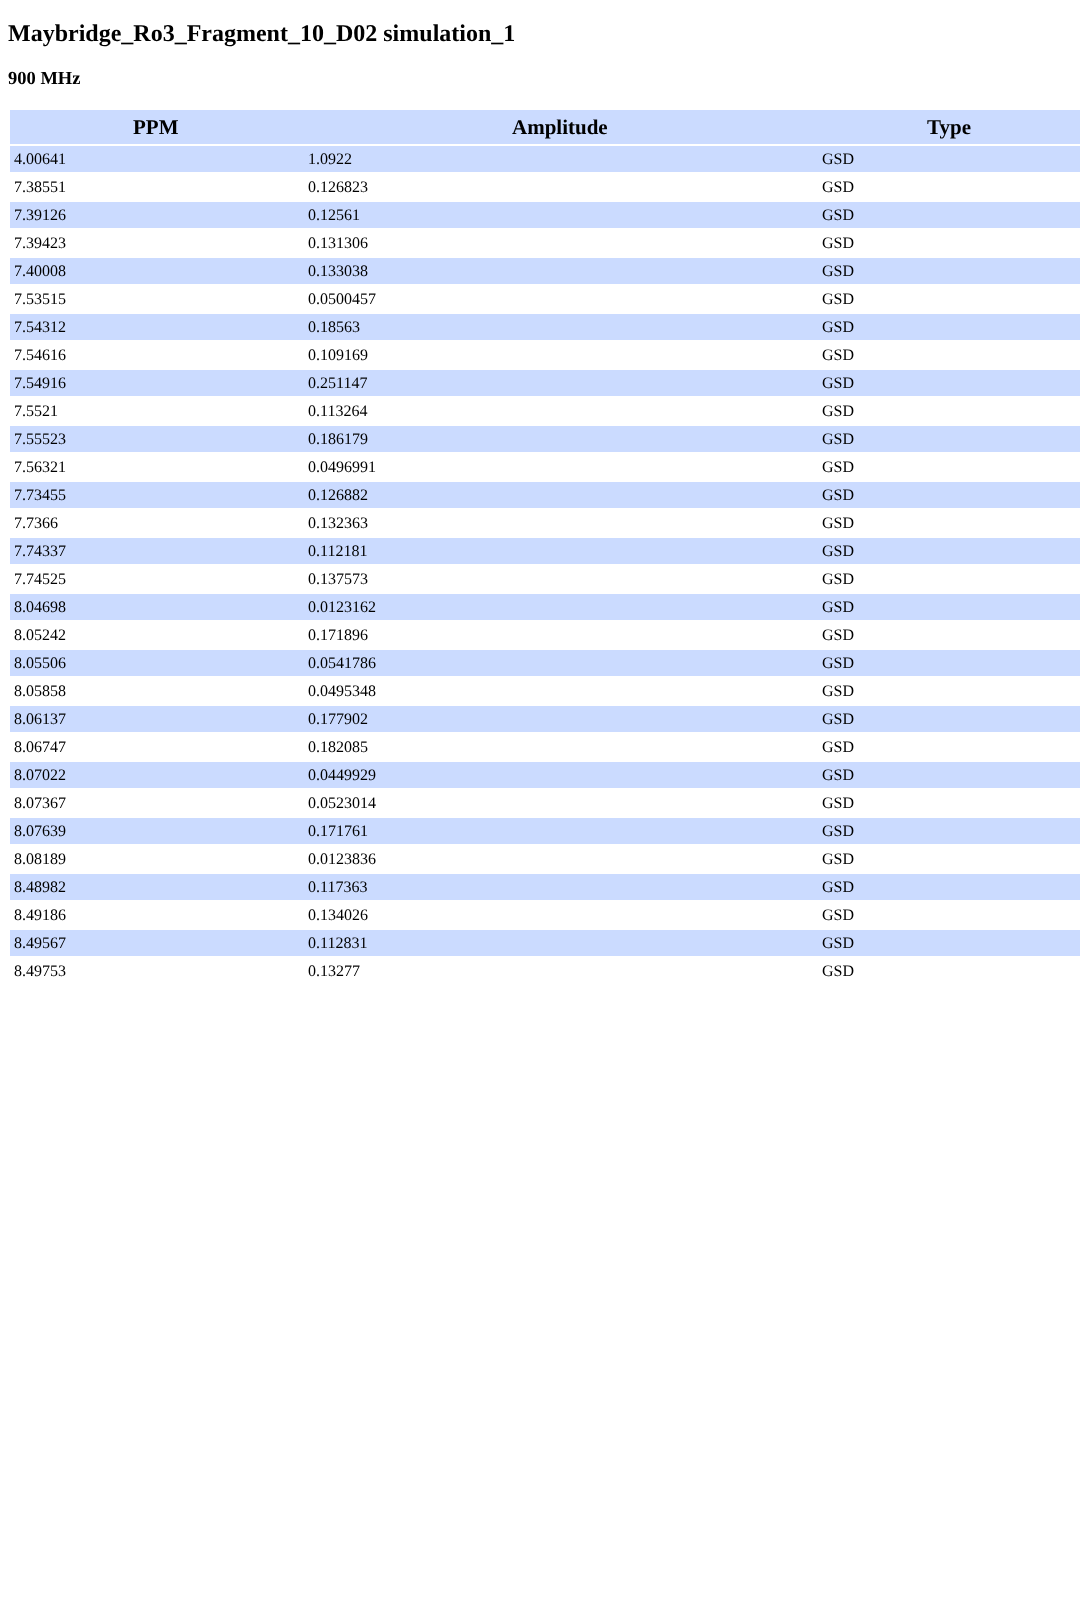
async function draw(canvas) {
  canvas.width = 1090
  canvas.height = 1618
  const ctx = canvas.getContext('2d')
  ctx.miterLimit = 4
  ctx.fontKerning = 'normal'

  ctx.fillStyle = '#fff'
  ctx.fillRect(0, 0, 1090, 1618)
  ctx.font = 'bold 24px Liberation Serif'
  ctx.fillStyle = '#000'
  ctx.fillText('Maybridge_Ro3_Fragment_10_D02 simulation_1', 8, 41)
  ctx.font = 'bold 18.5px Liberation Serif'
  ctx.fillText('900 MHz', 8, 84)
  ctx.fillStyle = '#cbdbff'
  ctx.fillRect(10, 110, 1070, 34)
  ctx.font = 'bold 21px Liberation Serif'
  ctx.fillStyle = '#000'
  ctx.fillText('PPM', 133, 134)
  ctx.fillText('Amplitude', 512, 134)
  ctx.fillText('Type', 927, 134)
  ctx.fillStyle = '#cbdbff'
  ctx.fillRect(10, 146, 1070, 26)
  ctx.font = '16px Liberation Serif'
  ctx.fillStyle = '#000'
  ctx.fillText('4.00641', 14, 164)
  ctx.fillText('1.0922', 308, 164)
  ctx.fillText('GSD', 822, 164)
  ctx.fillText('7.38551', 14, 192)
  ctx.fillText('0.126823', 308, 192)
  ctx.fillText('GSD', 822, 192)
  ctx.fillStyle = '#cbdbff'
  ctx.fillRect(10, 202, 1070, 26)
  ctx.fillStyle = '#000'
  ctx.fillText('7.39126', 14, 220)
  ctx.fillText('0.12561', 308, 220)
  ctx.fillText('GSD', 822, 220)
  ctx.fillText('7.39423', 14, 248)
  ctx.fillText('0.131306', 308, 248)
  ctx.fillText('GSD', 822, 248)
  ctx.fillStyle = '#cbdbff'
  ctx.fillRect(10, 258, 1070, 26)
  ctx.fillStyle = '#000'
  ctx.fillText('7.40008', 14, 276)
  ctx.fillText('0.133038', 308, 276)
  ctx.fillText('GSD', 822, 276)
  ctx.fillText('7.53515', 14, 304)
  ctx.fillText('0.0500457', 308, 304)
  ctx.fillText('GSD', 822, 304)
  ctx.fillStyle = '#cbdbff'
  ctx.fillRect(10, 314, 1070, 26)
  ctx.fillStyle = '#000'
  ctx.fillText('7.54312', 14, 332)
  ctx.fillText('0.18563', 308, 332)
  ctx.fillText('GSD', 822, 332)
  ctx.fillText('7.54616', 14, 360)
  ctx.fillText('0.109169', 308, 360)
  ctx.fillText('GSD', 822, 360)
  ctx.fillStyle = '#cbdbff'
  ctx.fillRect(10, 370, 1070, 26)
  ctx.fillStyle = '#000'
  ctx.fillText('7.54916', 14, 388)
  ctx.fillText('0.251147', 308, 388)
  ctx.fillText('GSD', 822, 388)
  ctx.fillText('7.5521', 14, 416)
  ctx.fillText('0.113264', 308, 416)
  ctx.fillText('GSD', 822, 416)
  ctx.fillStyle = '#cbdbff'
  ctx.fillRect(10, 426, 1070, 26)
  ctx.fillStyle = '#000'
  ctx.fillText('7.55523', 14, 444)
  ctx.fillText('0.186179', 308, 444)
  ctx.fillText('GSD', 822, 444)
  ctx.fillText('7.56321', 14, 472)
  ctx.fillText('0.0496991', 308, 472)
  ctx.fillText('GSD', 822, 472)
  ctx.fillStyle = '#cbdbff'
  ctx.fillRect(10, 482, 1070, 26)
  ctx.fillStyle = '#000'
  ctx.fillText('7.73455', 14, 500)
  ctx.fillText('0.126882', 308, 500)
  ctx.fillText('GSD', 822, 500)
  ctx.fillText('7.7366', 14, 528)
  ctx.fillText('0.132363', 308, 528)
  ctx.fillText('GSD', 822, 528)
  ctx.fillStyle = '#cbdbff'
  ctx.fillRect(10, 538, 1070, 26)
  ctx.fillStyle = '#000'
  ctx.fillText('7.74337', 14, 556)
  ctx.fillText('0.112181', 308, 556)
  ctx.fillText('GSD', 822, 556)
  ctx.fillText('7.74525', 14, 584)
  ctx.fillText('0.137573', 308, 584)
  ctx.fillText('GSD', 822, 584)
  ctx.fillStyle = '#cbdbff'
  ctx.fillRect(10, 594, 1070, 26)
  ctx.fillStyle = '#000'
  ctx.fillText('8.04698', 14, 612)
  ctx.fillText('0.0123162', 308, 612)
  ctx.fillText('GSD', 822, 612)
  ctx.fillText('8.05242', 14, 640)
  ctx.fillText('0.171896', 308, 640)
  ctx.fillText('GSD', 822, 640)
  ctx.fillStyle = '#cbdbff'
  ctx.fillRect(10, 650, 1070, 26)
  ctx.fillStyle = '#000'
  ctx.fillText('8.05506', 14, 668)
  ctx.fillText('0.0541786', 308, 668)
  ctx.fillText('GSD', 822, 668)
  ctx.fillText('8.05858', 14, 696)
  ctx.fillText('0.0495348', 308, 696)
  ctx.fillText('GSD', 822, 696)
  ctx.fillStyle = '#cbdbff'
  ctx.fillRect(10, 706, 1070, 26)
  ctx.fillStyle = '#000'
  ctx.fillText('8.06137', 14, 724)
  ctx.fillText('0.177902', 308, 724)
  ctx.fillText('GSD', 822, 724)
  ctx.fillText('8.06747', 14, 752)
  ctx.fillText('0.182085', 308, 752)
  ctx.fillText('GSD', 822, 752)
  ctx.fillStyle = '#cbdbff'
  ctx.fillRect(10, 762, 1070, 26)
  ctx.fillStyle = '#000'
  ctx.fillText('8.07022', 14, 780)
  ctx.fillText('0.0449929', 308, 780)
  ctx.fillText('GSD', 822, 780)
  ctx.fillText('8.07367', 14, 808)
  ctx.fillText('0.0523014', 308, 808)
  ctx.fillText('GSD', 822, 808)
  ctx.fillStyle = '#cbdbff'
  ctx.fillRect(10, 818, 1070, 26)
  ctx.fillStyle = '#000'
  ctx.fillText('8.07639', 14, 836)
  ctx.fillText('0.171761', 308, 836)
  ctx.fillText('GSD', 822, 836)
  ctx.fillText('8.08189', 14, 864)
  ctx.fillText('0.0123836', 308, 864)
  ctx.fillText('GSD', 822, 864)
  ctx.fillStyle = '#cbdbff'
  ctx.fillRect(10, 874, 1070, 26)
  ctx.fillStyle = '#000'
  ctx.fillText('8.48982', 14, 892)
  ctx.fillText('0.117363', 308, 892)
  ctx.fillText('GSD', 822, 892)
  ctx.fillText('8.49186', 14, 920)
  ctx.fillText('0.134026', 308, 920)
  ctx.fillText('GSD', 822, 920)
  ctx.fillStyle = '#cbdbff'
  ctx.fillRect(10, 930, 1070, 26)
  ctx.fillStyle = '#000'
  ctx.fillText('8.49567', 14, 948)
  ctx.fillText('0.112831', 308, 948)
  ctx.fillText('GSD', 822, 948)
  ctx.fillText('8.49753', 14, 976)
  ctx.fillText('0.13277', 308, 976)
  ctx.fillText('GSD', 822, 976)
}

draw(document.querySelector('canvas'))
